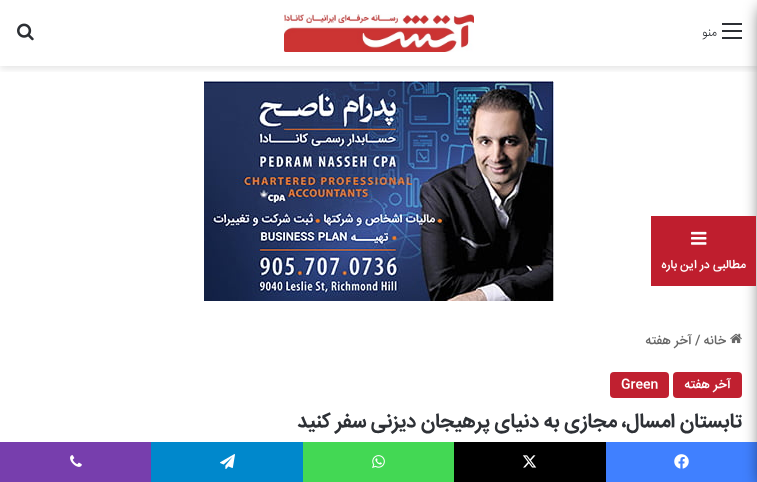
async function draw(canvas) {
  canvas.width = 757
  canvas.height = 482
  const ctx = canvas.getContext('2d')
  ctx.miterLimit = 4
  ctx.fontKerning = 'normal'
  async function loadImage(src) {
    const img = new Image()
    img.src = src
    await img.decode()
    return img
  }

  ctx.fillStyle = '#fff'
  ctx.fillRect(0, 0, 757, 482)
  ctx.save()
  ctx.beginPath()
  ctx.rect(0, 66, 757, 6)
  ctx.clip()
  ctx.fillStyle = '#0000001a'
  ctx.filter = 'blur(3.5px)'
  ctx.beginPath()
  ctx.rect(0, 3, 757, 66)
  ctx.fill()
  ctx.filter = 'none'
  ctx.restore()
  ctx.fillStyle = '#2c2f34'
  ctx.fillRect(722, 30, 20, 2)
  ctx.fillRect(722, 23, 20, 2)
  ctx.fillRect(722, 37, 20, 2)
  ctx.direction = 'rtl'
  ctx.font = '300 12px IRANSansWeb'
  ctx.fillStyle = '#2e3136'
  ctx.fillText('منو', 717, 36)
  ctx.drawImage(await loadImage('image0.png'), 284, 14, 190, 38)
  ctx.drawImage(await loadImage('image1.png'), 17, 23, 17, 18)
  ctx.drawImage(await loadImage('image2.png'), 204, 81, 350, 220)
  ctx.drawImage(await loadImage('image3.png'), 730, 333, 12, 11)
  ctx.font = '500 13px IRANSansWeb'
  ctx.fillStyle = '#686868'
  ctx.fillText('خانه', 726, 344)
  ctx.direction = 'ltr'
  ctx.fillText('/', 695, 344)
  ctx.direction = 'rtl'
  ctx.fillText('آخر هفته', 692, 344)
  ctx.fillStyle = '#c02030'
  ctx.beginPath()
  ctx.roundRect(673, 372, 69, 26, 4)
  ctx.fill()
  ctx.fillStyle = '#fff'
  ctx.fillText('آخر هفته', 731, 388)
  ctx.fillStyle = '#c02030'
  ctx.beginPath()
  ctx.roundRect(610, 372, 59, 26, 4)
  ctx.fill()
  ctx.direction = 'ltr'
  ctx.fillStyle = '#fff'
  ctx.fillText('Green', 621, 388)
  ctx.direction = 'rtl'
  ctx.font = 'bold 20px IRANSansWeb'
  ctx.fillStyle = '#2e3136'
  ctx.fillText('تابستان امسال، مجازی به دنیای پرهیجان دیزنی سفر کنید', 742, 427)
  ctx.fillStyle = '#4080ff'
  ctx.fillRect(606, 442, 151, 40)
  ctx.drawImage(await loadImage('image4.png'), 674, 454, 15, 15)
  ctx.fillStyle = '#000'
  ctx.fillRect(454, 442, 152, 40)
  ctx.drawImage(await loadImage('image5.png'), 522, 455, 15, 13)
  ctx.fillStyle = '#43d854'
  ctx.fillRect(303, 442, 151, 40)
  ctx.drawImage(await loadImage('image6.png'), 372, 455, 13, 13)
  ctx.fillStyle = '#08c'
  ctx.fillRect(151, 442, 152, 40)
  ctx.drawImage(await loadImage('image7.png'), 220, 454, 15, 15)
  ctx.fillStyle = '#773ead'
  ctx.fillRect(0, 442, 151, 40)
  ctx.drawImage(await loadImage('image8.png'), 70, 455, 12, 12)
  ctx.fillStyle = '#000000bf'
  ctx.filter = 'blur(8.5px)'
  ctx.beginPath()
  ctx.rect(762, 8, 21, 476)
  ctx.fill()
  ctx.filter = 'none'
  ctx.fillStyle = '#bf1e2e'
  ctx.fillRect(651, 216, 105, 70)
  ctx.drawImage(await loadImage('image9.png'), 691, 231, 16, 14)
  ctx.font = '500 12px IRANSansWeb'
  ctx.fillStyle = '#fff'
  ctx.fillText('مطالبی در این باره', 746, 268)
}

draw(document.querySelector('canvas'))
